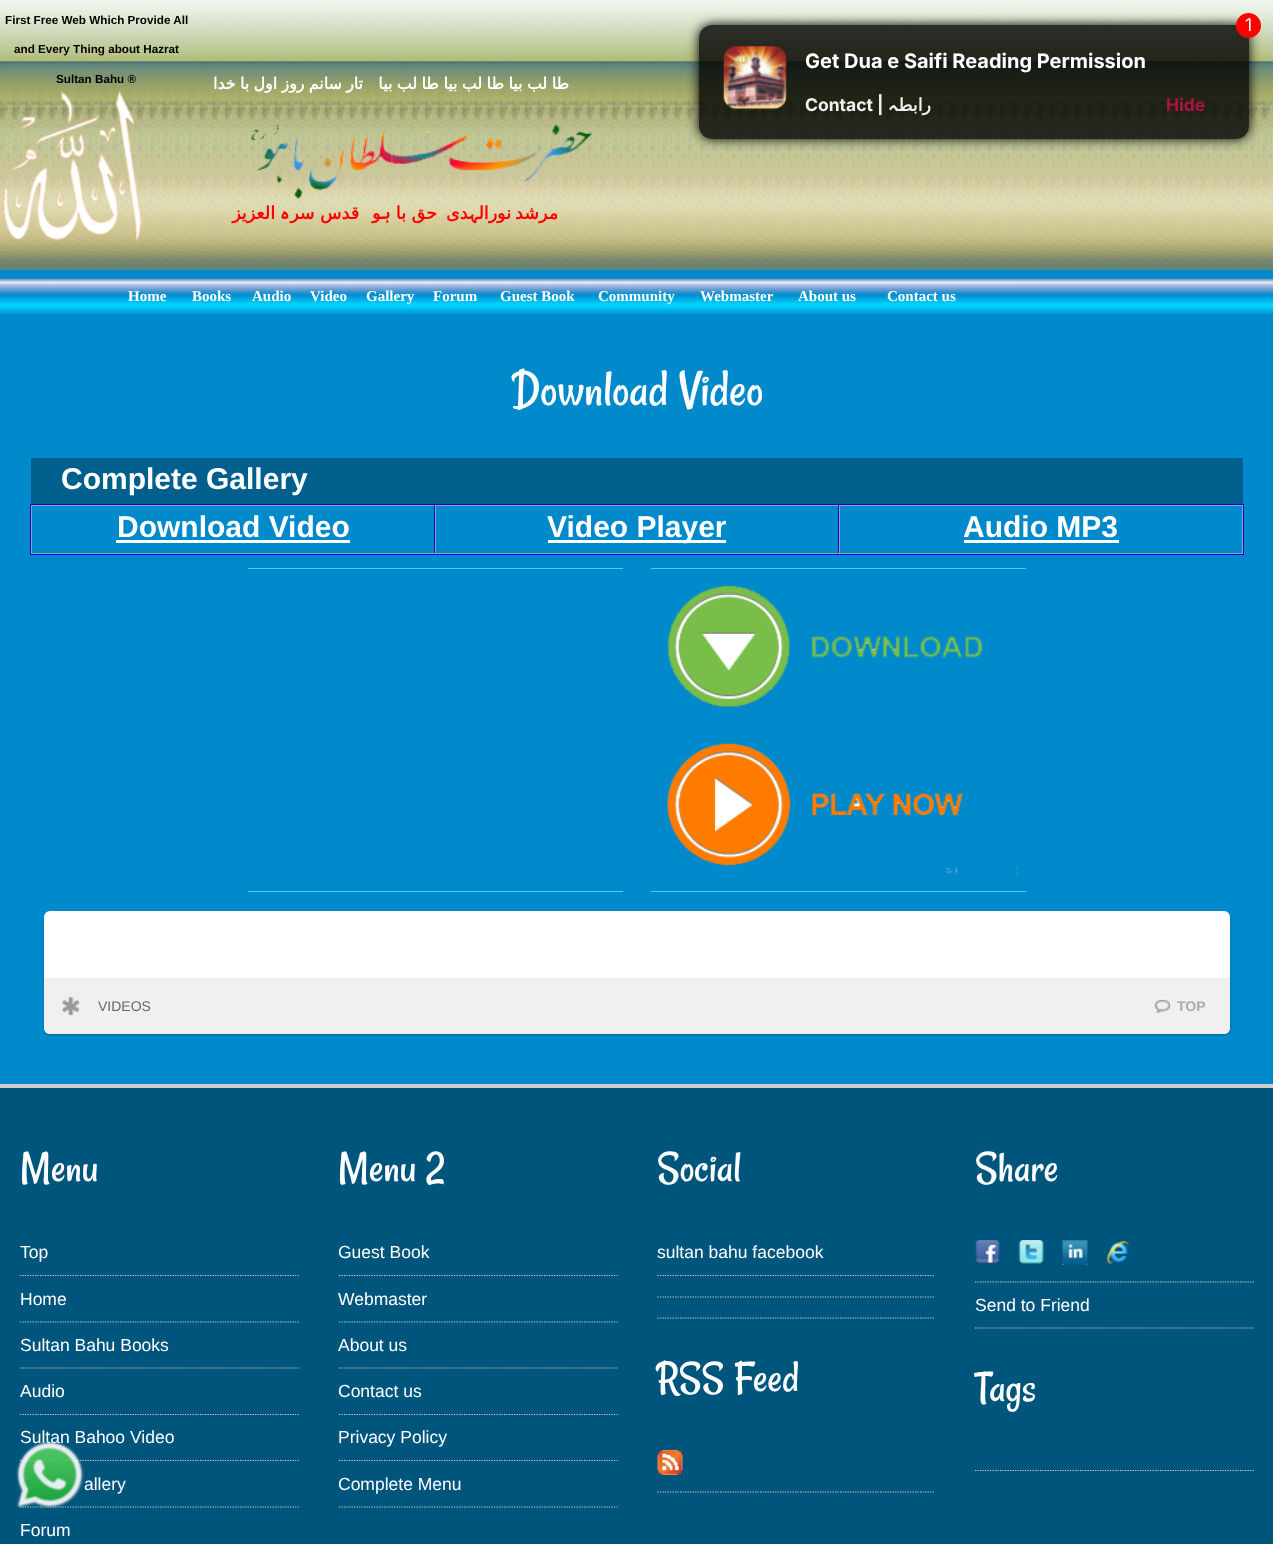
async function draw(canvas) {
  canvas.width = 1273
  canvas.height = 1544
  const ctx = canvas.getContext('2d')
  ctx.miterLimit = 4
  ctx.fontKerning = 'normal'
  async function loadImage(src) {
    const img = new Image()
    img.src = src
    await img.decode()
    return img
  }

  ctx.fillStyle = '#0089cb'
  ctx.fillRect(0, 0, 1273, 1544)
  ctx.drawImage(await loadImage('image0.png'), 0, 0, 1273, 314)
  ctx.font = 'bold 11.7px Liberation Sans'
  ctx.fillStyle = '#000'
  ctx.fillText('First Free Web Which Provide All', 5, 24)
  ctx.fillText('and Every Thing about Hazrat', 14, 53)
  ctx.fillText('Sultan Bahu ®', 56, 83)
  ctx.wordSpacing = '-0.5px'
  ctx.direction = 'rtl'
  ctx.font = 'bold 15.75px DejaVu Sans'
  ctx.fillStyle = '#fff'
  ctx.fillText('تار سانم روز اول با خدا', 363, 89)
  ctx.fillText('طا لب بيا طا لب بيا طا لب بيا', 569, 89)
  ctx.drawImage(await loadImage('image1.png'), 1, 89, 142, 154)
  ctx.drawImage(await loadImage('image2.png'), 251, 112, 341, 87)
  ctx.wordSpacing = '0px'
  ctx.font = 'bold 17.5px DejaVu Sans'
  ctx.fillStyle = '#f00'
  ctx.fillText('العزیز', 275, 219)
  ctx.font = 'bold 17.5px Cascadia Code'
  ctx.fillText('ہ', 290, 219)
  ctx.font = 'bold 17.5px DejaVu Sans'
  ctx.fillText('قدس سر', 359, 219)
  ctx.fillText('‍و', 381, 219)
  ctx.font = 'bold 17.5px Cascadia Code'
  ctx.fillText('ہ‍', 391, 219)
  ctx.font = 'bold 17.5px DejaVu Sans'
  ctx.fillText('حق با', 437, 219)
  ctx.fillText('‍دی', 469, 219)
  ctx.font = 'bold 17.5px Cascadia Code'
  ctx.fillText('‍ہ‍', 479, 219)
  ctx.font = 'bold 17.5px DejaVu Sans'
  ctx.fillText('نورال‍', 511, 219)
  ctx.fillText('مرشد', 558, 219)
  ctx.direction = 'ltr'
  ctx.font = 'bold 15px Liberation Serif'
  ctx.fillStyle = '#fff'
  ctx.fillText('Home', 128, 301)
  ctx.fillText('Books', 192, 301)
  ctx.fillText('Audio', 252, 301)
  ctx.fillText('Video', 310, 301)
  ctx.fillText('Gallery', 366, 301)
  ctx.fillText('Forum', 433, 301)
  ctx.fillText('Guest Book', 500, 301)
  ctx.fillText('Community', 598, 301)
  ctx.fillText('Webmaster', 700, 301)
  ctx.fillText('About us', 798, 301)
  ctx.fillText('Contact us', 887, 301)
  ctx.font = '52.5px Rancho'
  ctx.fillText('Download Video', 511, 405)
  ctx.fillStyle = '#005f8c'
  ctx.fillRect(31, 458, 1212, 46)
  ctx.font = 'bold 30px Liberation Sans'
  ctx.fillStyle = '#fff'
  ctx.fillText('Complete Gallery', 61, 489)
  ctx.strokeStyle = '#00f'
  ctx.strokeRect(30.5, 504.5, 1213, 50)
  ctx.fillStyle = '#a1a1a1'
  ctx.fillRect(31, 505, 808, 1)
  ctx.fillStyle = '#00f'
  ctx.fillRect(434, 505, 1, 49)
  ctx.fillStyle = '#a1a1a1'
  ctx.fillRect(31, 553, 404, 1)
  ctx.fillRect(31, 505, 1, 49)
  ctx.fillStyle = '#fff'
  ctx.fillText('Download Video', 117, 537)
  ctx.fillRect(116, 540, 234, 3)
  ctx.fillStyle = '#00f'
  ctx.fillRect(838, 505, 1, 49)
  ctx.fillStyle = '#a1a1a1'
  ctx.fillRect(435, 553, 404, 1)
  ctx.fillRect(435, 505, 1, 49)
  ctx.fillStyle = '#fff'
  ctx.fillRect(548, 540, 178, 3)
  ctx.fillText('Video Player', 547, 537)
  ctx.strokeStyle = '#a1a1a1'
  ctx.strokeRect(839.5, 505.5, 403, 48)
  ctx.fillText('Audio MP3', 963, 537)
  ctx.fillRect(964, 540, 155, 3)
  ctx.fillStyle = '#53c7ff'
  ctx.fillRect(248, 568, 375, 1)
  ctx.fillRect(248, 891, 375, 1)
  ctx.fillRect(651, 568, 375, 1)
  ctx.fillRect(651, 891, 375, 1)
  ctx.drawImage(await loadImage('image3.png'), 667, 585, 351, 289)
  ctx.fillStyle = '#00000040'
  ctx.filter = 'blur(1px)'
  ctx.beginPath()
  ctx.roundRect(44, 913, 1186, 122, 6)
  ctx.fill()
  ctx.filter = 'none'
  ctx.fillStyle = '#fff'
  ctx.beginPath()
  ctx.roundRect(44, 911, 1186, 123, 6)
  ctx.fill()
  ctx.fillStyle = '#f0f0f0'
  ctx.beginPath()
  ctx.roundRect(44, 978, 1186, 56, [0, 0, 6, 6])
  ctx.fill()
  ctx.drawImage(await loadImage('image4.png'), 62, 996, 18, 20)
  ctx.font = '14px Liberation Sans'
  ctx.fillStyle = '#666'
  ctx.fillText('VIDEOS', 98, 1011)
  ctx.drawImage(await loadImage('image5.png'), 1155, 999, 15, 14)
  ctx.font = 'bold 14px Liberation Sans'
  ctx.fillStyle = '#aaa'
  ctx.fillText('TOP', 1177, 1011)
  ctx.save()
  ctx.beginPath()
  ctx.moveTo(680, 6)
  ctx.lineTo(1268, 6)
  ctx.lineTo(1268, 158)
  ctx.lineTo(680, 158)
  ctx.closePath()
  ctx.moveTo(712, 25)
  ctx.lineTo(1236, 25)
  ctx.bezierCurveTo(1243, 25, 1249, 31, 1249, 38)
  ctx.lineTo(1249, 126)
  ctx.bezierCurveTo(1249, 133, 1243, 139, 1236, 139)
  ctx.lineTo(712, 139)
  ctx.bezierCurveTo(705, 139, 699, 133, 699, 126)
  ctx.lineTo(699, 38)
  ctx.bezierCurveTo(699, 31, 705, 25, 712, 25)
  ctx.closePath()
  ctx.clip('evenodd')
  ctx.fillStyle = '#000'
  ctx.filter = 'blur(6px)'
  ctx.beginPath()
  ctx.roundRect(699, 25, 550, 114, 13)
  ctx.fill()
  ctx.filter = 'none'
  ctx.restore()
  ctx.fillStyle = '#000000cc'
  ctx.beginPath()
  ctx.roundRect(699, 25, 550, 114, 13)
  ctx.fill()
  ctx.fillStyle = '#f00'
  ctx.beginPath()
  ctx.arc(1248.5, 25.5, 12.5, 0, 2 * Math.PI)
  ctx.fill()
  ctx.font = '17.5px Inter'
  ctx.fillStyle = '#fff'
  ctx.fillText('1', 1245, 31)
  ctx.drawImage(await loadImage('image6.png'), 723, 46, 64, 64)
  ctx.font = 'bold 20px Inter'
  ctx.fillText('Get Dua e Saifi Reading Permission', 805, 68)
  ctx.font = 'bold 17.5px Inter'
  ctx.fillStyle = '#f1f1f1'
  ctx.fillText('Contact |', 805, 111)
  ctx.direction = 'rtl'
  ctx.font = 'bold 17.5px Cascadia Code'
  ctx.fillText('‍ہ', 898, 111)
  ctx.font = 'bold 17.5px DejaVu Sans'
  ctx.fillText('رابط‍', 931, 111)
  ctx.direction = 'ltr'
  ctx.font = 'bold 17.5px Inter'
  ctx.fillStyle = '#aa1345'
  ctx.fillText('Hide', 1166, 111)
  ctx.fillStyle = '#00557d'
  ctx.fillRect(0, 1088, 1273, 456)
  ctx.fillStyle = '#ccc'
  ctx.fillRect(0, 1084, 1273, 4)
  ctx.font = '45px Rancho'
  ctx.fillStyle = '#fff'
  ctx.fillText('Menu', 20, 1181)
  ctx.beginPath()
  ctx.moveTo(20, 1275.5)
  ctx.lineTo(299, 1275.5)
  ctx.strokeStyle = '#ccc'
  ctx.lineWidth = 1.2
  ctx.setLineDash([1.25, 1.25])
  ctx.stroke()
  ctx.font = '17.5px Liberation Sans'
  ctx.fillText('Top', 20, 1258)
  ctx.beginPath()
  ctx.moveTo(20, 1322)
  ctx.lineTo(299, 1322)
  ctx.stroke()
  ctx.fillText('Home', 20, 1305)
  ctx.beginPath()
  ctx.moveTo(20, 1368)
  ctx.lineTo(299, 1368)
  ctx.stroke()
  ctx.fillText('Sultan Bahu Books', 20, 1351)
  ctx.beginPath()
  ctx.moveTo(20, 1414.5)
  ctx.lineTo(299, 1414.5)
  ctx.stroke()
  ctx.fillText('Audio', 20, 1397)
  ctx.beginPath()
  ctx.moveTo(20, 1460.5)
  ctx.lineTo(299, 1460.5)
  ctx.stroke()
  ctx.fillText('Sultan Bahoo Video', 20, 1443)
  ctx.beginPath()
  ctx.moveTo(20, 1507)
  ctx.lineTo(299, 1507)
  ctx.stroke()
  ctx.fillText('allery', 84, 1490)
  ctx.fillText('Forum', 20, 1536)
  ctx.font = '45px Rancho'
  ctx.fillText('Menu 2', 338, 1181)
  ctx.beginPath()
  ctx.moveTo(339, 1275.5)
  ctx.lineTo(617.5, 1275.5)
  ctx.stroke()
  ctx.font = '17.5px Liberation Sans'
  ctx.fillText('Guest Book', 338, 1258)
  ctx.beginPath()
  ctx.moveTo(339, 1322)
  ctx.lineTo(617.5, 1322)
  ctx.stroke()
  ctx.fillText('Webmaster', 338, 1305)
  ctx.beginPath()
  ctx.moveTo(339, 1368)
  ctx.lineTo(617.5, 1368)
  ctx.stroke()
  ctx.fillText('About us', 338, 1351)
  ctx.beginPath()
  ctx.moveTo(339, 1414.5)
  ctx.lineTo(617.5, 1414.5)
  ctx.stroke()
  ctx.fillText('Contact us', 338, 1397)
  ctx.beginPath()
  ctx.moveTo(339, 1460.5)
  ctx.lineTo(617.5, 1460.5)
  ctx.stroke()
  ctx.fillText('Privacy Policy', 338, 1443)
  ctx.beginPath()
  ctx.moveTo(339, 1507)
  ctx.lineTo(617.5, 1507)
  ctx.stroke()
  ctx.fillText('Complete Menu', 338, 1490)
  ctx.font = '45px Rancho'
  ctx.fillText('Social', 657, 1181)
  ctx.beginPath()
  ctx.moveTo(657.5, 1275.5)
  ctx.lineTo(935, 1275.5)
  ctx.stroke()
  ctx.font = '17.5px Liberation Sans'
  ctx.fillText('sultan bahu facebook', 657, 1258)
  ctx.beginPath()
  ctx.moveTo(657.5, 1297)
  ctx.lineTo(935, 1297)
  ctx.stroke()
  ctx.beginPath()
  ctx.moveTo(657.5, 1318)
  ctx.lineTo(935, 1318)
  ctx.stroke()
  ctx.font = '45px Rancho'
  ctx.fillText('RSS Feed', 657, 1391)
  ctx.beginPath()
  ctx.moveTo(657.5, 1492)
  ctx.lineTo(935, 1492)
  ctx.stroke()
  ctx.drawImage(await loadImage('image7.png'), 657, 1450, 26, 25)
  ctx.fillText('Share', 975, 1181)
  ctx.beginPath()
  ctx.moveTo(975, 1282)
  ctx.lineTo(1254, 1282)
  ctx.stroke()
  ctx.drawImage(await loadImage('image8.png'), 975, 1240, 25, 24)
  ctx.drawImage(await loadImage('image9.png'), 1018, 1240, 26, 24)
  ctx.drawImage(await loadImage('image10.png'), 1062, 1240, 26, 25)
  ctx.drawImage(await loadImage('image11.png'), 1106, 1241, 23, 23)
  ctx.beginPath()
  ctx.moveTo(975, 1328)
  ctx.lineTo(1254, 1328)
  ctx.stroke()
  ctx.font = '17.5px Liberation Sans'
  ctx.fillText('Send to Friend', 975, 1311)
  ctx.font = '45px Rancho'
  ctx.fillText('Tags', 975, 1401)
  ctx.beginPath()
  ctx.moveTo(975, 1470.5)
  ctx.lineTo(1254, 1470.5)
  ctx.stroke()
  ctx.drawImage(await loadImage('image12.png'), 16, 1440, 69, 69)
}

draw(document.querySelector('canvas'))
